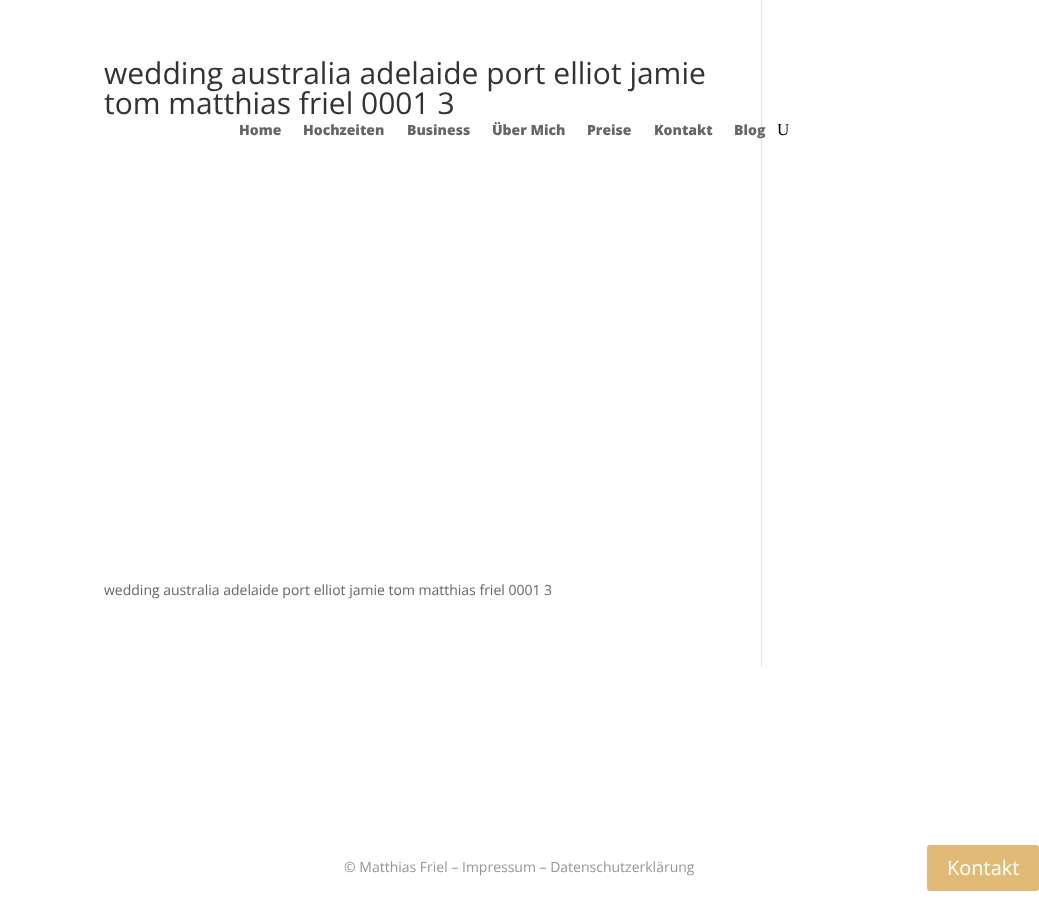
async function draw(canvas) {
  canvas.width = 1039
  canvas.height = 921
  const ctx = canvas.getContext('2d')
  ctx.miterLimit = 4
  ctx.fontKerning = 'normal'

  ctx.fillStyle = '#fff'
  ctx.fillRect(0, 0, 1039, 921)
  ctx.font = '30px Open Sans'
  ctx.fillStyle = '#333'
  ctx.fillText('wedding australia adelaide port elliot jamie', 104, 84)
  ctx.fillText('tom matthias friel 0001 3', 104, 114)
  ctx.font = '14px Open Sans'
  ctx.fillStyle = '#666'
  ctx.fillText('wedding australia adelaide port elliot jamie tom matthias friel 0001 3', 104, 595)
  ctx.fillStyle = '#e2e2e2'
  ctx.fillRect(761, 0, 1, 667)
  ctx.fillStyle = '#969696'
  ctx.fillText('© Matthias Friel – Impressum – Datenschutzerklärung', 344, 872)
  ctx.fillStyle = '#e1ba75'
  ctx.beginPath()
  ctx.roundRect(927, 845, 112, 46, 3)
  ctx.fill()
  ctx.font = '20px Open Sans'
  ctx.fillStyle = '#fff'
  ctx.fillText('Kontakt', 947, 875)
  ctx.font = '800 14px Open Sans'
  ctx.fillStyle = '#666'
  ctx.fillText('Home', 239, 135)
  ctx.fillText('Hochzeiten', 303, 135)
  ctx.fillText('Business', 407, 135)
  ctx.fillText('Über Mich', 492, 135)
  ctx.fillText('Preise', 587, 135)
  ctx.fillText('Kontakt', 654, 135)
  ctx.fillText('Blog', 734, 135)
  ctx.font = '17px Liberation Serif'
  ctx.fillStyle = '#000'
  ctx.fillText('U', 777, 135)
}

draw(document.querySelector('canvas'))
